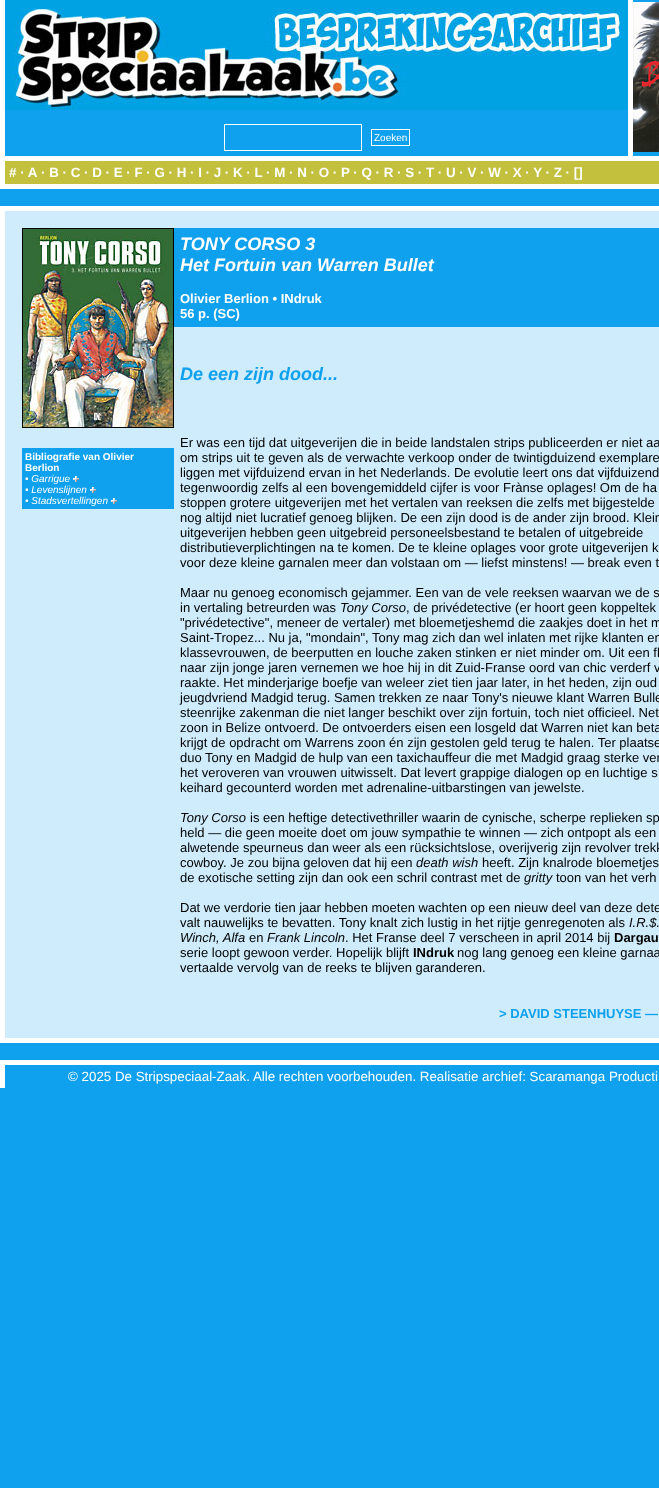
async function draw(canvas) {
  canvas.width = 659
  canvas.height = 1488
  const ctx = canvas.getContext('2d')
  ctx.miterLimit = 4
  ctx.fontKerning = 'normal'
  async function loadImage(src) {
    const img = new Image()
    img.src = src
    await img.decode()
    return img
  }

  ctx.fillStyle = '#0fa1ee'
  ctx.fillRect(0, 0, 659, 1488)
  ctx.fillStyle = '#fff'
  ctx.fillRect(0, 184, 659, 5)
  ctx.fillRect(0, 0, 5, 189)
  ctx.drawImage(await loadImage('image0.png'), 5, 0, 623, 110)
  ctx.strokeStyle = '#fff'
  ctx.strokeRect(224.5, 124.5, 137, 26)
  ctx.strokeRect(371.5, 129.5, 38, 16)
  ctx.font = '10px Liberation Sans'
  ctx.fillText('Zoeken', 374, 141)
  ctx.fillRect(628, 0, 5, 156)
  ctx.drawImage(await loadImage('image1.png'), 633, 2, 26, 150)
  ctx.fillRect(5, 156, 654, 5)
  ctx.fillStyle = '#c3c03d'
  ctx.fillRect(5, 161, 654, 23)
  ctx.font = 'bold 13.35px Liberation Sans'
  ctx.fillStyle = '#fff'
  ctx.fillText('# · A', 9, 177)
  ctx.fillText('· B · C · D · E · F · G · H · I · J · K · L · M · N · O · P · Q · R · S · T · U · V · W · X · Y · Z · []', 41, 177)
  ctx.fillStyle = '#cfecfc'
  ctx.beginPath()
  ctx.rect(2.5, 208.5, 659, 832)
  ctx.fill()
  ctx.lineWidth = 5
  ctx.stroke()
  ctx.strokeStyle = '#000'
  ctx.lineWidth = 1
  ctx.strokeRect(22.5, 228.5, 151, 199)
  ctx.drawImage(await loadImage('image2.png'), 23, 229, 150, 198)
  ctx.fillStyle = '#0fa1ee'
  ctx.fillRect(22, 448, 152, 61)
  ctx.font = 'bold 10px Liberation Sans'
  ctx.fillStyle = '#fff'
  ctx.fillText('Bibliografie van Olivier', 25, 460)
  ctx.fillText('Berlion', 25, 471)
  ctx.font = 'italic 10px Liberation Sans'
  ctx.fillText('• Garrigue', 25, 482)
  ctx.drawImage(await loadImage('image3.png'), 73, 476, 6, 6)
  ctx.fillText('• Levenslijnen', 25, 493)
  ctx.drawImage(await loadImage('image3.png'), 90, 487, 6, 6)
  ctx.fillText('• Stadsvertellingen', 25, 504)
  ctx.drawImage(await loadImage('image3.png'), 111, 498, 6, 6)
  ctx.fillStyle = '#0fa1ee'
  ctx.fillRect(174, 228, 485, 99)
  ctx.font = 'italic bold 18px Liberation Sans'
  ctx.fillStyle = '#fff'
  ctx.fillText('TONY CORSO 3', 180, 250)
  ctx.fillText('Het Fortuin van Warren Bullet', 180, 271)
  ctx.font = 'bold 13px Liberation Sans'
  ctx.fillText('Olivier Berlion • INdruk', 180, 303)
  ctx.fillText('56 p. (SC)', 180, 318)
  ctx.font = 'italic bold 18px Liberation Sans'
  ctx.fillStyle = '#0fa1ee'
  ctx.fillText('De een zijn dood...', 180, 380)
  ctx.font = '13px Liberation Sans'
  ctx.fillStyle = '#000'
  ctx.fillText('Er was een tijd dat uitgeverijen die in beide landstalen strips publiceerden er niet aa', 180, 447)
  ctx.fillText('om strips uit te geven als de verwachte verkoop onder de twintigduizend exemplare', 180, 462)
  ctx.fillText('liggen met vijfduizend ervan in het Nederlands. De evolutie leert ons dat vijfduizend', 180, 477)
  ctx.fillText('tegenwoordig zelfs al een bovengemiddeld cijfer is voor Frànse oplages! Om de ha', 180, 492)
  ctx.fillText('stoppen grotere uitgeverijen met het vertalen van reeksen die zelfs met bijgestelde', 180, 507)
  ctx.fillText('nog altijd niet lucratief genoeg blijken. De een zijn dood is de ander zijn brood. Klein', 180, 522)
  ctx.fillText('uitgeverijen hebben geen uitgebreid personeelsbestand te betalen of uitgebreide', 180, 537)
  ctx.fillText('distributieverplichtingen na te komen. De te kleine oplages voor grote uitgeverijen k', 180, 552)
  ctx.fillText('voor deze kleine garnalen meer dan volstaan om — liefst minstens! — break even t', 180, 567)
  ctx.fillText('Maar nu genoeg economisch gejammer. Een van de vele reeksen waarvan we de s', 180, 597)
  ctx.fillText('in vertaling betreurden was', 180, 612)
  ctx.font = 'italic 13px Liberation Sans'
  ctx.fillText('Tony Corso', 340, 612)
  ctx.font = '13px Liberation Sans'
  ctx.fillText(', de privédetective (er hoort geen koppeltek', 406, 612)
  ctx.fillText('"privédetective", meneer de vertaler) met bloemetjeshemd die zaakjes doet in het m', 180, 627)
  ctx.fillText('Saint-Tropez... Nu ja, "mondain", Tony mag zich dan wel inlaten met rijke klanten en', 180, 642)
  ctx.fillText('klassevrouwen, de beerputten en louche zaken stinken er niet minder om. Uit een fl', 180, 657)
  ctx.fillText('naar zijn jonge jaren vernemen we hoe hij in dit Zuid-Franse oord van chic verderf v', 180, 672)
  ctx.fillText('raakte. Het minderjarige boefje van weleer ziet tien jaar later, in het heden, zijn oud', 180, 687)
  ctx.fillText('jeugdvriend Madgid terug. Samen trekken ze naar Tony\'s nieuwe klant Warren Bulle', 180, 702)
  ctx.fillText('steenrijke zakenman die niet langer beschikt over zijn fortuin, toch niet officieel. Net', 180, 717)
  ctx.fillText('zoon in Belize ontvoerd. De ontvoerders eisen een losgeld dat Warren niet kan beta', 180, 732)
  ctx.fillText('krijgt de opdracht om Warrens zoon én zijn gestolen geld terug te halen. Ter plaatse', 180, 747)
  ctx.fillText('duo Tony en Madgid de hulp van een taxichauffeur die met Madgid graag sterke ver', 180, 762)
  ctx.fillText('het veroveren van vrouwen uitwisselt. Dat levert grappige dialogen op en luchtige s', 180, 777)
  ctx.fillText('keihard gecounterd worden met adrenaline-uitbarstingen van jewelste.', 180, 792)
  ctx.font = 'italic 13px Liberation Sans'
  ctx.fillText('Tony Corso', 180, 822)
  ctx.font = '13px Liberation Sans'
  ctx.fillText('is een heftige detectivethriller waarin de cynische, scherpe replieken sp', 250, 822)
  ctx.fillText('held — die geen moeite doet om jouw sympathie te winnen — zich ontpopt als een', 180, 837)
  ctx.fillText('alwetende speurneus dan weer als een rücksichtslose, overijverig zijn revolver trekk', 180, 852)
  ctx.fillText('cowboy. Je zou bijna geloven dat hij een', 180, 867)
  ctx.font = 'italic 13px Liberation Sans'
  ctx.fillText('death wish', 416, 867)
  ctx.font = '13px Liberation Sans'
  ctx.fillText('heeft. Zijn knalrode bloemetjes', 482, 867)
  ctx.fillText('de exotische setting zijn dan ook een schril contrast met de', 180, 882)
  ctx.font = 'italic 13px Liberation Sans'
  ctx.fillText('gritty', 524, 882)
  ctx.font = '13px Liberation Sans'
  ctx.fillText('toon van het verh', 556, 882)
  ctx.fillText('Dat we verdorie tien jaar hebben moeten wachten op een nieuw deel van deze dete', 180, 912)
  ctx.fillText('valt nauwelijks te bevatten. Tony knalt zich lustig in het rijtje genregenoten als', 180, 927)
  ctx.font = 'italic 13px Liberation Sans'
  ctx.fillText('I.R.$.', 629, 927)
  ctx.fillText('Winch, Alfa', 180, 942)
  ctx.font = '13px Liberation Sans'
  ctx.fillText('en', 249, 942)
  ctx.font = 'italic 13px Liberation Sans'
  ctx.fillText('Frank Lincoln', 267, 942)
  ctx.font = '13px Liberation Sans'
  ctx.fillText('. Het Franse deel 7 verscheen in april 2014 bij', 345, 942)
  ctx.font = 'bold 13px Liberation Sans'
  ctx.fillText('Dargau', 614, 942)
  ctx.font = '13px Liberation Sans'
  ctx.fillText('serie loopt gewoon verder. Hopelijk blijft', 180, 957)
  ctx.font = 'bold 13px Liberation Sans'
  ctx.fillText('INdruk', 413, 957)
  ctx.font = '13px Liberation Sans'
  ctx.fillText('nog lang genoeg een kleine garnaa', 457, 957)
  ctx.fillText('vertaalde vervolg van de reeks te blijven garanderen.', 180, 972)
  ctx.font = 'bold 13px Liberation Sans'
  ctx.fillStyle = '#0fa1ee'
  ctx.fillText('> DAVID STEENHUYSE —', 499, 1018)
  ctx.fillStyle = '#fff'
  ctx.fillRect(0, 1060, 659, 5)
  ctx.fillRect(0, 1060, 5, 28)
  ctx.font = '13.35px Liberation Sans'
  ctx.fillText('© 2025 De Stripspeciaal-Zaak. Alle rechten voorbehouden. Realisatie archief: Scaramanga Producti', 68, 1081)
}

draw(document.querySelector('canvas'))
